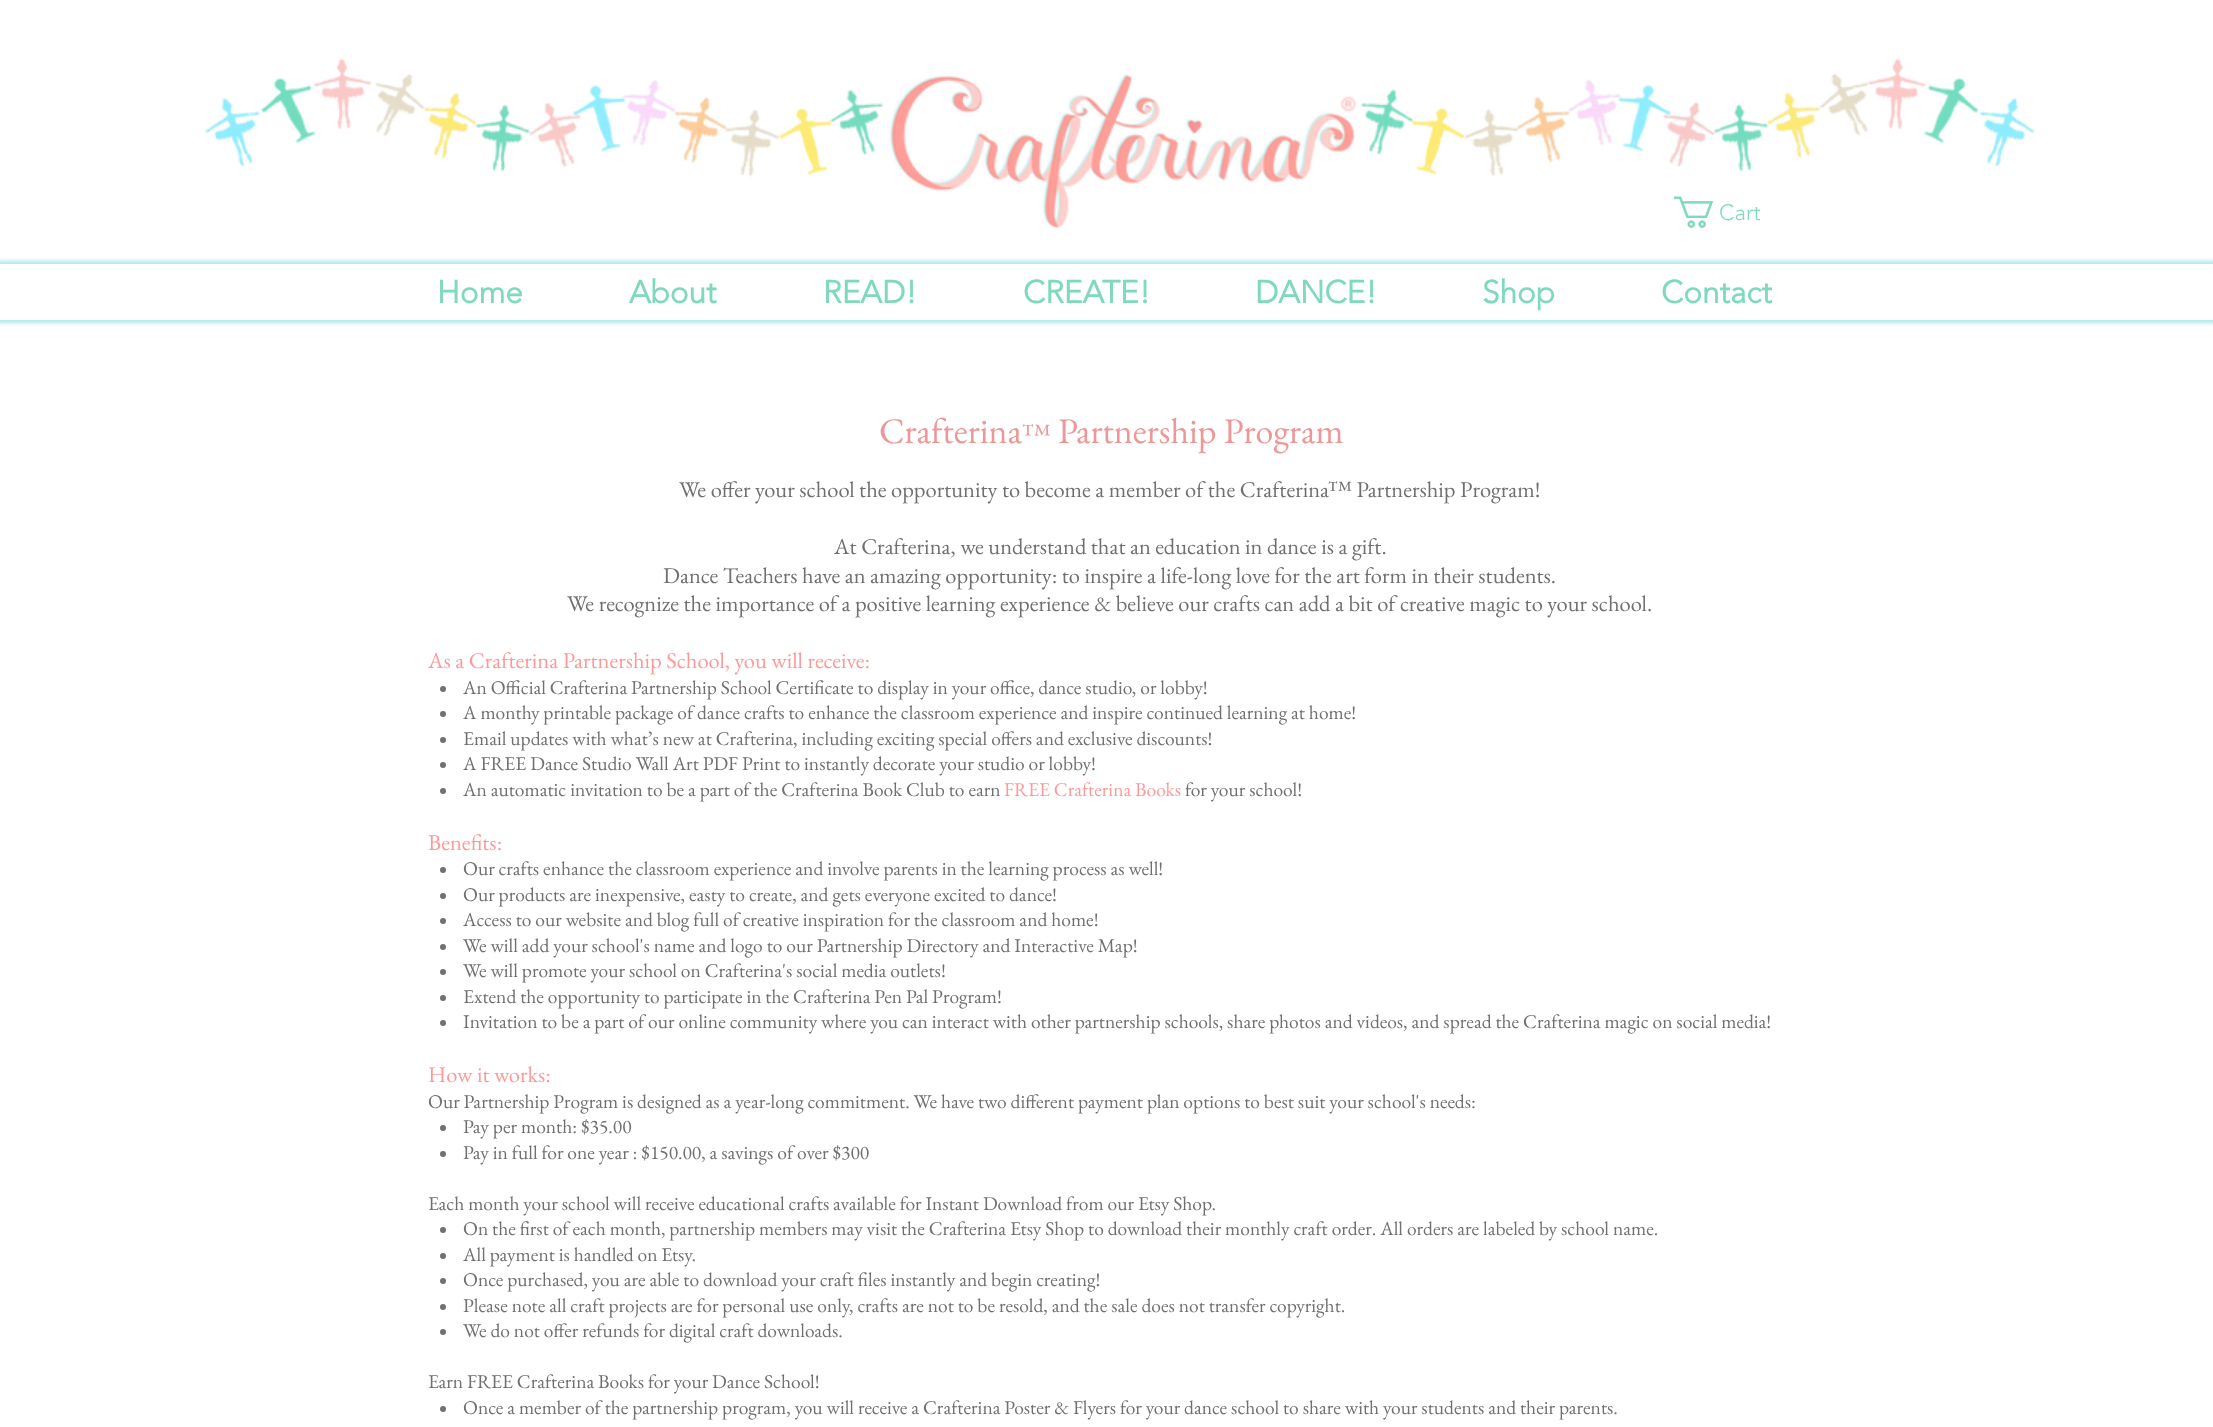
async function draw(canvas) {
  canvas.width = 2213
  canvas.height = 1427
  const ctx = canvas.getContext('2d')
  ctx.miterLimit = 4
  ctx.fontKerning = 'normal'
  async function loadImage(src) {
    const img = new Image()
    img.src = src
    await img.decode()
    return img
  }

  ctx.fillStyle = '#fff'
  ctx.fillRect(0, 0, 2213, 1427)
  ctx.drawImage(await loadImage('image0.png'), 205, 58, 1829, 171)
  ctx.drawImage(await loadImage('image1.png'), 1674, 196, 40, 32)
  ctx.font = '300 22px "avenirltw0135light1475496"'
  ctx.fillStyle = '#7ed9bd'
  ctx.fillText('Cart', 1719, 220)
  ctx.fillStyle = '#93dee2c2'
  ctx.filter = 'blur(2px)'
  ctx.beginPath()
  ctx.rect(-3, 261, 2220, 62)
  ctx.fill()
  ctx.filter = 'none'
  ctx.fillStyle = '#fff'
  ctx.fillRect(0, 264, 2213, 56)
  ctx.font = 'bold 31.5px "avenirltw0135light1475496"'
  ctx.fillStyle = '#7ed9bd'
  ctx.fillText('Home', 437, 303)
  ctx.fillText('About', 629, 303)
  ctx.fillText('READ!', 823, 303)
  ctx.fillText('CREATE!', 1023, 303)
  ctx.fillText('DANCE!', 1255, 303)
  ctx.fillText('Shop', 1482, 303)
  ctx.fillText('Contact', 1661, 303)
  ctx.font = '36px EB Garamond'
  ctx.fillStyle = '#ef9797'
  ctx.fillText('Crafterina', 879, 443)
  ctx.font = '27px EB Garamond'
  ctx.fillText('™', 1022, 443)
  ctx.font = '36px EB Garamond'
  ctx.fillText('Partnership Program', 1058, 443)
  ctx.font = '22.5px EB Garamond'
  ctx.fillStyle = '#717070'
  ctx.fillText('We offer your school the opportunity to become a member of the Crafterina™ Partnership Program!', 679, 497)
  ctx.fillText('At Crafterina, we understand that an education in dance is a gift.', 834, 554)
  ctx.fillText('Dance Teachers have an amazing opportunity: to inspire a life-long love for the art form in their students.', 663, 583)
  ctx.fillText('We recognize the importance of a positive learning experience & believe our crafts can add a bit of creative magic to your school.', 567, 611)
  ctx.fillStyle = '#f99'
  ctx.fillText('As a Crafterina Partnership School, you will receive:', 428, 668)
  ctx.fillStyle = '#717070'
  ctx.beginPath()
  ctx.arc(443, 689, 3, 0, 2 * Math.PI)
  ctx.fill()
  ctx.font = '19.5px EB Garamond'
  ctx.fillText('An Official Crafterina Partnership School Certificate to display in your office, dance studio, or lobby!', 463, 694)
  ctx.beginPath()
  ctx.arc(443, 714, 3, 0, 2 * Math.PI)
  ctx.fill()
  ctx.fillText('A monthy printable package of dance crafts to enhance the classroom experience and inspire continued learning at home!', 463, 719)
  ctx.beginPath()
  ctx.arc(443, 740, 3, 0, 2 * Math.PI)
  ctx.fill()
  ctx.fillText('Email updates with what’s new at Crafterina, including exciting special offers and exclusive discounts!', 463, 745)
  ctx.beginPath()
  ctx.arc(443, 765, 3, 0, 2 * Math.PI)
  ctx.fill()
  ctx.fillText('A FREE Dance Studio Wall Art PDF Print to instantly decorate your studio or lobby!', 463, 770)
  ctx.beginPath()
  ctx.arc(443, 791, 3, 0, 2 * Math.PI)
  ctx.fill()
  ctx.fillText('An automatic invitation to be a part of the Crafterina Book Club to earn', 463, 796)
  ctx.fillStyle = '#f99'
  ctx.fillText('FREE Crafterina Books', 1004, 796)
  ctx.fillStyle = '#717070'
  ctx.fillText('for your school!', 1185, 796)
  ctx.font = '22.5px EB Garamond'
  ctx.fillStyle = '#f99'
  ctx.fillText('Benefits:', 428, 850)
  ctx.fillStyle = '#717070'
  ctx.beginPath()
  ctx.arc(443, 870, 3, 0, 2 * Math.PI)
  ctx.fill()
  ctx.font = '19.5px EB Garamond'
  ctx.fillText('Our crafts enhance the classroom experience and involve parents in the learning process as well!', 463, 875)
  ctx.beginPath()
  ctx.arc(443, 896, 3, 0, 2 * Math.PI)
  ctx.fill()
  ctx.fillText('Our products are inexpensive, easty to create, and gets everyone excited to dance!', 463, 901)
  ctx.beginPath()
  ctx.arc(443, 921, 3, 0, 2 * Math.PI)
  ctx.fill()
  ctx.fillText('Access to our website and blog full of creative inspiration for the classroom and home!', 463, 926)
  ctx.beginPath()
  ctx.arc(443, 947, 3, 0, 2 * Math.PI)
  ctx.fill()
  ctx.fillText('We will add your school\'s name and logo to our Partnership Directory and Interactive Map!', 463, 952)
  ctx.beginPath()
  ctx.arc(443, 972, 3, 0, 2 * Math.PI)
  ctx.fill()
  ctx.fillText('We will promote your school on Crafterina\'s social media outlets!', 463, 977)
  ctx.beginPath()
  ctx.arc(443, 998, 3, 0, 2 * Math.PI)
  ctx.fill()
  ctx.fillText('Extend the opportunity to participate in the Crafterina Pen Pal Program!', 463, 1003)
  ctx.beginPath()
  ctx.arc(443, 1023, 3, 0, 2 * Math.PI)
  ctx.fill()
  ctx.fillText('Invitation to be a part of our online community where you can interact with other partnership schools, share photos and videos, and spread the Crafterina magic on social media!', 463, 1028)
  ctx.font = '22.5px EB Garamond'
  ctx.fillStyle = '#f99'
  ctx.fillText('How it works:', 428, 1082)
  ctx.font = '19.5px EB Garamond'
  ctx.fillStyle = '#717070'
  ctx.fillText('Our Partnership Program is designed as a year-long commitment. We have two different payment plan options to best suit your school\'s needs:', 428, 1108)
  ctx.beginPath()
  ctx.arc(443, 1128, 3, 0, 2 * Math.PI)
  ctx.fill()
  ctx.fillText('Pay per month: $35.00', 463, 1133)
  ctx.beginPath()
  ctx.arc(443, 1154, 3, 0, 2 * Math.PI)
  ctx.fill()
  ctx.fillText('Pay in full for one year : $150.00, a savings of over $300', 463, 1159)
  ctx.fillText('Each month your school will receive educational crafts available for Instant Download from our Etsy Shop.', 428, 1210)
  ctx.beginPath()
  ctx.arc(443, 1230, 3, 0, 2 * Math.PI)
  ctx.fill()
  ctx.fillText('On the first of each month, partnership members may visit the Crafterina Etsy Shop to download their monthly craft order. All orders are labeled by school name.', 463, 1235)
  ctx.beginPath()
  ctx.arc(443, 1256, 3, 0, 2 * Math.PI)
  ctx.fill()
  ctx.fillText('All payment is handled on Etsy.', 463, 1261)
  ctx.beginPath()
  ctx.arc(443, 1281, 3, 0, 2 * Math.PI)
  ctx.fill()
  ctx.fillText('Once purchased, you are able to download your craft files instantly and begin creating!', 463, 1286)
  ctx.beginPath()
  ctx.arc(443, 1307, 3, 0, 2 * Math.PI)
  ctx.fill()
  ctx.fillText('Please note all craft projects are for personal use only, crafts are not to be resold, and the sale does not transfer copyright.', 463, 1312)
  ctx.beginPath()
  ctx.arc(443, 1332, 3, 0, 2 * Math.PI)
  ctx.fill()
  ctx.fillText('We do not offer refunds for digital craft downloads.', 463, 1337)
  ctx.fillText('Earn FREE Crafterina Books for your Dance School!', 428, 1388)
  ctx.beginPath()
  ctx.arc(443, 1409, 3, 0, 2 * Math.PI)
  ctx.fill()
  ctx.fillText('Once a member of the partnership program, you will receive a Crafterina Poster & Flyers for your dance school to share with your students and their parents.', 463, 1414)
}

draw(document.querySelector('canvas'))
